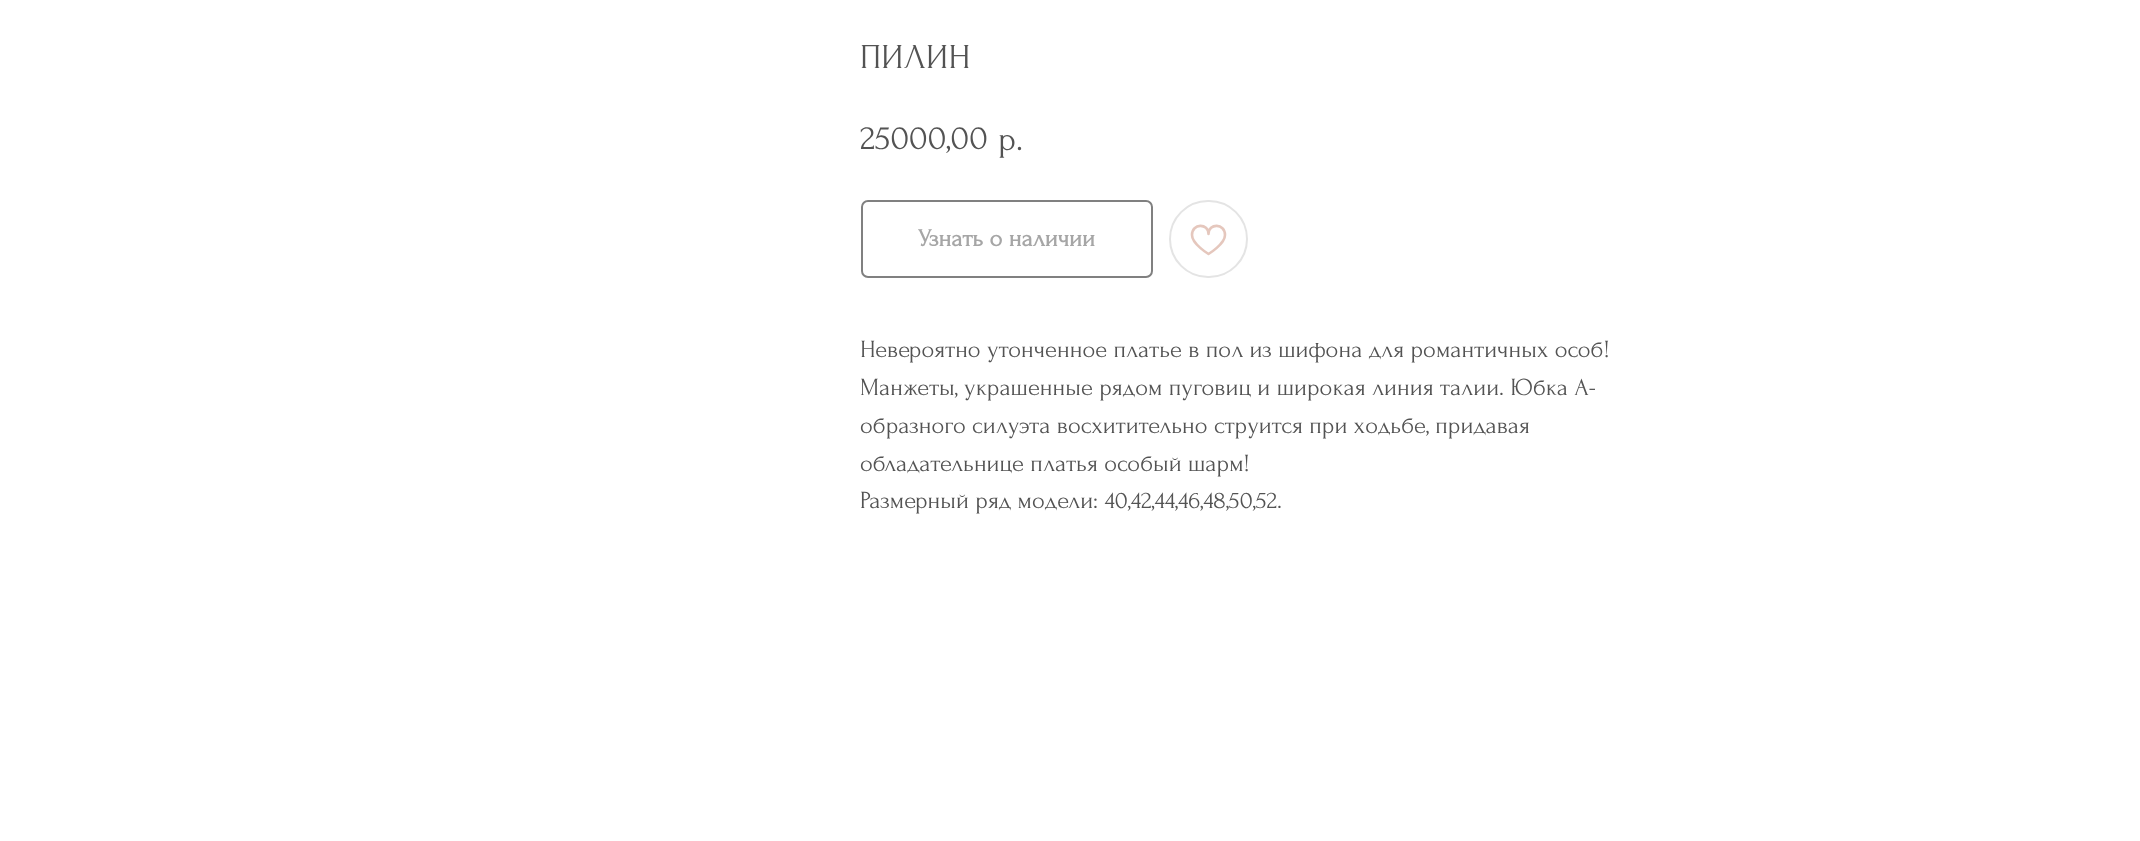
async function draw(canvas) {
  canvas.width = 2140
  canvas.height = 841
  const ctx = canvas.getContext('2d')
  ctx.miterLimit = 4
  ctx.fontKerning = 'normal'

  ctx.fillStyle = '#fff'
  ctx.fillRect(0, 0, 2140, 841)
  ctx.font = '35px Forum'
  ctx.fillStyle = '#535353'
  ctx.fillText('ПИЛИН', 860, 68)
  ctx.fillText('25000,00', 860, 149)
  ctx.fillText('р.', 998, 150)
  ctx.beginPath()
  ctx.roundRect(862, 201, 290, 76, 6)
  ctx.strokeStyle = '#808080'
  ctx.lineWidth = 2
  ctx.stroke()
  ctx.font = 'bold 24.5px Forum'
  ctx.fillStyle = '#a6a6a6'
  ctx.fillText('Узнать о наличии', 918, 246)
  ctx.beginPath()
  ctx.roundRect(1170, 201, 77, 76, 38)
  ctx.strokeStyle = '#e4e4e4'
  ctx.stroke()
  ctx.beginPath()
  ctx.moveTo(1225, 235)
  ctx.bezierCurveTo(1225, 244, 1208.5, 254, 1208.5, 254)
  ctx.bezierCurveTo(1208.5, 254, 1192, 244, 1192, 235)
  ctx.bezierCurveTo(1192, 223, 1208.5, 223, 1208.5, 234)
  ctx.bezierCurveTo(1208.5, 223, 1225, 223, 1225, 235)
  ctx.closePath()
  ctx.strokeStyle = '#e5c7bd'
  ctx.lineWidth = 2.6
  ctx.lineJoin = 'round'
  ctx.stroke()
  ctx.font = '24.5px Forum'
  ctx.fillStyle = '#535353'
  ctx.fillText('Невероятно утонченное платье в пол из шифона для романтичных особ!', 860, 357)
  ctx.fillText('Манжеты, украшенные рядом пуговиц и широкая линия талии. Юбка А-', 860, 395)
  ctx.fillText('образного силуэта восхитительно струится при ходьбе, придавая', 860, 433)
  ctx.fillText('обладательнице платья особый шарм!', 860, 471)
  ctx.fillText('Размерный ряд модели: 40,42,44,46,48,50,52.', 860, 508)
}

draw(document.querySelector('canvas'))
